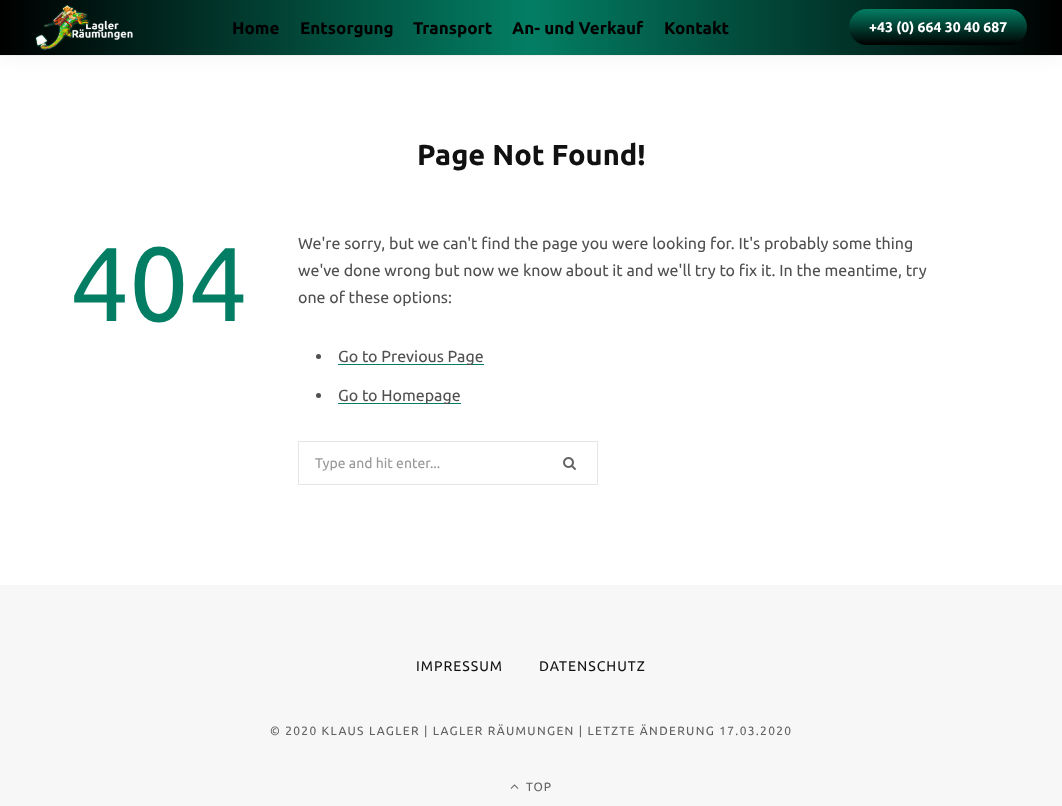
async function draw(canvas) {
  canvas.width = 1062
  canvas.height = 806
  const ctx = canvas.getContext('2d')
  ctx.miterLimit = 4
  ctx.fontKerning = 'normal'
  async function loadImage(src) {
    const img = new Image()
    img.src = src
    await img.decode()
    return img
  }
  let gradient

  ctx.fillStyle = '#fff'
  ctx.fillRect(0, 0, 1062, 806)
  ctx.fillStyle = '#0000000d'
  ctx.filter = 'blur(10px)'
  ctx.beginPath()
  ctx.rect(0, 0, 1062, 56)
  ctx.fill()
  ctx.filter = 'none'
  gradient = ctx.createLinearGradient(0, 28, 1062, 27)
  gradient.addColorStop(0, '#000')
  gradient.addColorStop(0.5, '#037e64')
  gradient.addColorStop(1, '#000')
  ctx.fillStyle = gradient
  ctx.fillRect(0, 0, 1062, 55)
  ctx.fillStyle = '#efefef'
  ctx.fillRect(0, 55, 1062, 1)
  ctx.drawImage(await loadImage('image0.png'), 35, 5, 98, 45)
  ctx.font = 'bold 17px Ubuntu'
  ctx.fillStyle = '#000'
  ctx.fillText('Home', 232, 34)
  ctx.fillText('Entsorgung', 300, 34)
  ctx.fillText('Transport', 413, 34)
  ctx.fillText('An- und Verkauf', 512, 34)
  ctx.fillText('Kontakt', 664, 34)
  gradient = ctx.createLinearGradient(938, 9, 938, 45)
  gradient.addColorStop(0, '#037e64')
  gradient.addColorStop(1, '#000')
  ctx.fillStyle = gradient
  ctx.beginPath()
  ctx.roundRect(849, 9, 178, 36, 18)
  ctx.fill()
  ctx.font = 'bold 14px Ubuntu'
  ctx.fillStyle = '#fff'
  ctx.fillText('+43 (0) 664 30 40 687', 869, 32)
  ctx.font = 'bold 29px Ubuntu'
  ctx.fillStyle = '#111'
  ctx.fillText('Page Not Found!', 417, 165)
  ctx.font = '105px Ubuntu'
  ctx.fillStyle = '#037e64'
  ctx.fillText('404', 70, 321)
  ctx.font = '16px Ubuntu'
  ctx.fillStyle = '#505050'
  ctx.fillText('We\'re sorry, but we can\'t find the page you were looking for. It\'s probably some thing', 298, 249)
  ctx.fillText('we\'ve done wrong but now we know about it and we\'ll try to fix it. In the meantime, try', 298, 276)
  ctx.fillText('one of these options:', 298, 303)
  ctx.beginPath()
  ctx.arc(318.5, 356.5, 2.5, 0, 2 * Math.PI)
  ctx.fill()
  ctx.fillStyle = '#037e64'
  ctx.fillRect(338, 364, 146, 1)
  ctx.fillStyle = '#505050'
  ctx.fillText('Go to Previous Page', 338, 362)
  ctx.beginPath()
  ctx.arc(318.5, 395.5, 2.5, 0, 2 * Math.PI)
  ctx.fill()
  ctx.fillStyle = '#037e64'
  ctx.fillRect(338, 403, 123, 1)
  ctx.fillStyle = '#505050'
  ctx.fillText('Go to Homepage', 338, 401)
  ctx.strokeStyle = '#e5e5e5'
  ctx.strokeRect(298.5, 441.5, 299, 43)
  ctx.font = '14px Ubuntu'
  ctx.fillStyle = '#989898'
  ctx.fillText('Type and hit enter...', 315, 468)
  ctx.drawImage(await loadImage('image1.png'), 563, 457, 13, 13)
  ctx.fillStyle = '#f7f7f7'
  ctx.fillRect(0, 585, 1062, 221)
  ctx.letterSpacing = '1px'
  ctx.fillStyle = '#111'
  ctx.fillText('IMPRESSUM', 416, 671)
  ctx.fillText('DATENSCHUTZ', 539, 671)
  ctx.letterSpacing = '1.32px'
  ctx.font = '12px Ubuntu'
  ctx.fillStyle = '#616161'
  ctx.fillText('© 2020 KLAUS LAGLER | LAGLER RÄUMUNGEN | LETZTE ÄNDERUNG 17.03.2020', 270, 735)
  ctx.drawImage(await loadImage('image2.png'), 510, 784, 9, 5)
  ctx.letterSpacing = '1px'
  ctx.fillText('TOP', 526, 791)
}

draw(document.querySelector('canvas'))
